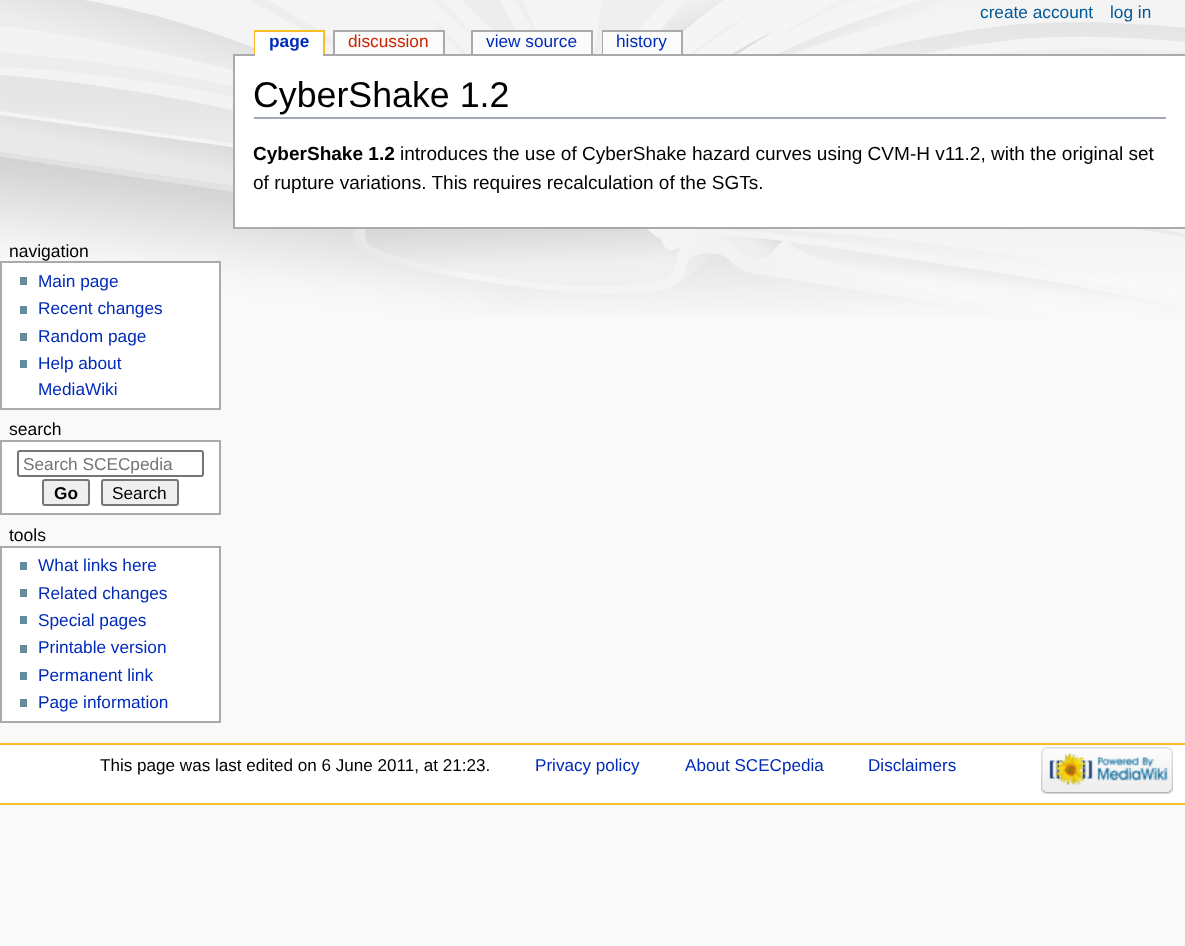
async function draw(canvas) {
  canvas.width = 1185
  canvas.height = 946
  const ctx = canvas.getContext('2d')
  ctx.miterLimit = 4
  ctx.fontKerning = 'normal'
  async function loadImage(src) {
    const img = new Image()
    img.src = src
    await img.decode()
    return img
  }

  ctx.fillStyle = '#f9f9f9'
  ctx.fillRect(0, 0, 1185, 946)
  ctx.drawImage(await loadImage('image0.png'), 0, 0, 1185, 315)
  ctx.font = '17.25px Liberation Sans'
  ctx.fillStyle = '#005896'
  ctx.fillText('create account', 980, 18)
  ctx.fillText('log in', 1110, 18)
  ctx.fillStyle = '#fabd23'
  ctx.fillRect(254, 30, 70, 2)
  ctx.fillRect(254, 30, 2, 24)
  ctx.fillStyle = '#aaa'
  ctx.fillRect(233, 54, 952, 2)
  ctx.fillStyle = '#fff'
  ctx.fillRect(255, 32, 68, 24)
  ctx.font = 'bold 17.25px Liberation Sans'
  ctx.fillStyle = '#002bb8'
  ctx.fillText('page', 269, 47)
  ctx.fillStyle = '#fabd23'
  ctx.fillRect(323, 30, 2, 24)
  ctx.fillStyle = '#fbfbfb'
  ctx.fillRect(335, 32, 108, 22)
  ctx.font = '17.25px Liberation Sans'
  ctx.fillStyle = '#c20'
  ctx.fillText('discussion', 348, 47)
  ctx.fillStyle = '#aaa'
  ctx.fillRect(333, 30, 111, 2)
  ctx.fillRect(443, 30, 2, 24)
  ctx.fillRect(333, 30, 2, 24)
  ctx.fillStyle = '#fbfbfb'
  ctx.fillRect(473, 32, 118, 22)
  ctx.fillStyle = '#002bb8'
  ctx.fillText('view source', 486, 47)
  ctx.fillStyle = '#aaa'
  ctx.fillRect(471, 30, 122, 2)
  ctx.fillRect(591, 30, 2, 24)
  ctx.fillRect(471, 30, 2, 24)
  ctx.fillRect(602, 30, 81, 2)
  ctx.fillRect(602, 30, 2, 24)
  ctx.fillStyle = '#fbfbfb'
  ctx.fillRect(603, 32, 78, 22)
  ctx.fillStyle = '#002bb8'
  ctx.fillText('history', 616, 47)
  ctx.fillStyle = '#aaa'
  ctx.fillRect(681, 30, 2, 24)
  ctx.font = '17.5px Liberation Sans'
  ctx.fillStyle = '#000'
  ctx.fillText('navigation', 9, 257)
  ctx.fillStyle = '#fff'
  ctx.beginPath()
  ctx.rect(1, 262, 219, 147)
  ctx.fill()
  ctx.strokeStyle = '#aaa'
  ctx.lineWidth = 2
  ctx.stroke()
  ctx.fillStyle = '#638c9c'
  ctx.fillRect(20, 277, 7, 8)
  ctx.font = '17.25px Liberation Sans'
  ctx.fillStyle = '#002bb8'
  ctx.fillText('Main page', 38, 287)
  ctx.fillStyle = '#638c9c'
  ctx.fillRect(20, 306, 7, 8)
  ctx.fillStyle = '#002bb8'
  ctx.fillText('Recent changes', 38, 314)
  ctx.fillStyle = '#638c9c'
  ctx.fillRect(20, 333, 7, 8)
  ctx.fillStyle = '#002bb8'
  ctx.fillText('Random page', 38, 342)
  ctx.fillStyle = '#638c9c'
  ctx.fillRect(20, 360, 7, 8)
  ctx.fillStyle = '#002bb8'
  ctx.fillText('Help about', 38, 369)
  ctx.fillText('MediaWiki', 38, 395)
  ctx.font = '17.5px Liberation Sans'
  ctx.fillStyle = '#000'
  ctx.fillText('search', 9, 435)
  ctx.fillStyle = '#fff'
  ctx.beginPath()
  ctx.rect(1, 441, 219, 73)
  ctx.fill()
  ctx.stroke()
  ctx.beginPath()
  ctx.roundRect(18, 451, 185, 25, 2)
  ctx.strokeStyle = '#767676'
  ctx.stroke()
  ctx.font = '17.25px Liberation Sans'
  ctx.fillStyle = '#757575'
  ctx.fillText('Search SCECpedia', 23, 470)
  ctx.fillStyle = '#efefef'
  ctx.beginPath()
  ctx.roundRect(43, 480, 46, 25, 2)
  ctx.fill()
  ctx.stroke()
  ctx.font = 'bold 17.25px Liberation Sans'
  ctx.fillStyle = '#000'
  ctx.fillText('Go', 54, 499)
  ctx.fillStyle = '#efefef'
  ctx.beginPath()
  ctx.roundRect(102, 480, 76, 25, 2)
  ctx.fill()
  ctx.stroke()
  ctx.font = '17.25px Liberation Sans'
  ctx.fillStyle = '#000'
  ctx.fillText('Search', 112, 499)
  ctx.font = '17.5px Liberation Sans'
  ctx.fillText('tools', 9, 541)
  ctx.fillStyle = '#fff'
  ctx.beginPath()
  ctx.rect(1, 547, 219, 175)
  ctx.fill()
  ctx.strokeStyle = '#aaa'
  ctx.stroke()
  ctx.fillStyle = '#638c9c'
  ctx.fillRect(20, 562, 7, 8)
  ctx.font = '17.25px Liberation Sans'
  ctx.fillStyle = '#002bb8'
  ctx.fillText('What links here', 38, 571)
  ctx.fillStyle = '#638c9c'
  ctx.fillRect(20, 589, 7, 8)
  ctx.fillStyle = '#002bb8'
  ctx.fillText('Related changes', 38, 599)
  ctx.fillStyle = '#638c9c'
  ctx.fillRect(20, 616, 7, 8)
  ctx.fillStyle = '#002bb8'
  ctx.fillText('Special pages', 38, 626)
  ctx.fillStyle = '#638c9c'
  ctx.fillRect(20, 645, 7, 8)
  ctx.fillStyle = '#002bb8'
  ctx.fillText('Printable version', 38, 653)
  ctx.fillStyle = '#638c9c'
  ctx.fillRect(20, 672, 7, 8)
  ctx.fillStyle = '#002bb8'
  ctx.fillText('Permanent link', 38, 681)
  ctx.fillStyle = '#638c9c'
  ctx.fillRect(20, 699, 7, 8)
  ctx.fillStyle = '#002bb8'
  ctx.fillText('Page information', 38, 708)
  ctx.fillStyle = '#fff'
  ctx.fillRect(235, 56, 950, 171)
  ctx.fillStyle = '#aaa'
  ctx.fillRect(233, 227, 952, 2)
  ctx.fillRect(233, 54, 2, 174)
  ctx.fillStyle = '#a2a9b1'
  ctx.fillRect(254, 117, 912, 2)
  ctx.font = '35.75px Liberation Sans'
  ctx.fillStyle = '#000'
  ctx.fillText('CyberShake 1.2', 253, 107)
  ctx.font = 'bold 19.05px Liberation Sans'
  ctx.fillText('CyberShake 1.2', 253, 160)
  ctx.font = '19.05px Liberation Sans'
  ctx.fillText('introduces the use of CyberShake hazard curves using CVM-H v11.2, with the original set', 400, 160)
  ctx.fillText('of rupture variations. This requires recalculation of the SGTs.', 253, 189)
  ctx.fillStyle = '#fff'
  ctx.fillRect(0, 745, 1185, 58)
  ctx.fillStyle = '#fabd23'
  ctx.fillRect(0, 743, 1185, 2)
  ctx.fillRect(0, 803, 1185, 2)
  ctx.font = '17.1px Liberation Sans'
  ctx.fillStyle = '#000'
  ctx.fillText('This page was last edited on 6 June 2011, at 21:23.', 100, 771)
  ctx.fillStyle = '#002bb8'
  ctx.fillText('Privacy policy', 535, 771)
  ctx.fillText('About SCECpedia', 685, 771)
  ctx.fillText('Disclaimers', 868, 771)
  ctx.drawImage(await loadImage('image1.png'), 1041, 747, 132, 47)
}

draw(document.querySelector('canvas'))
